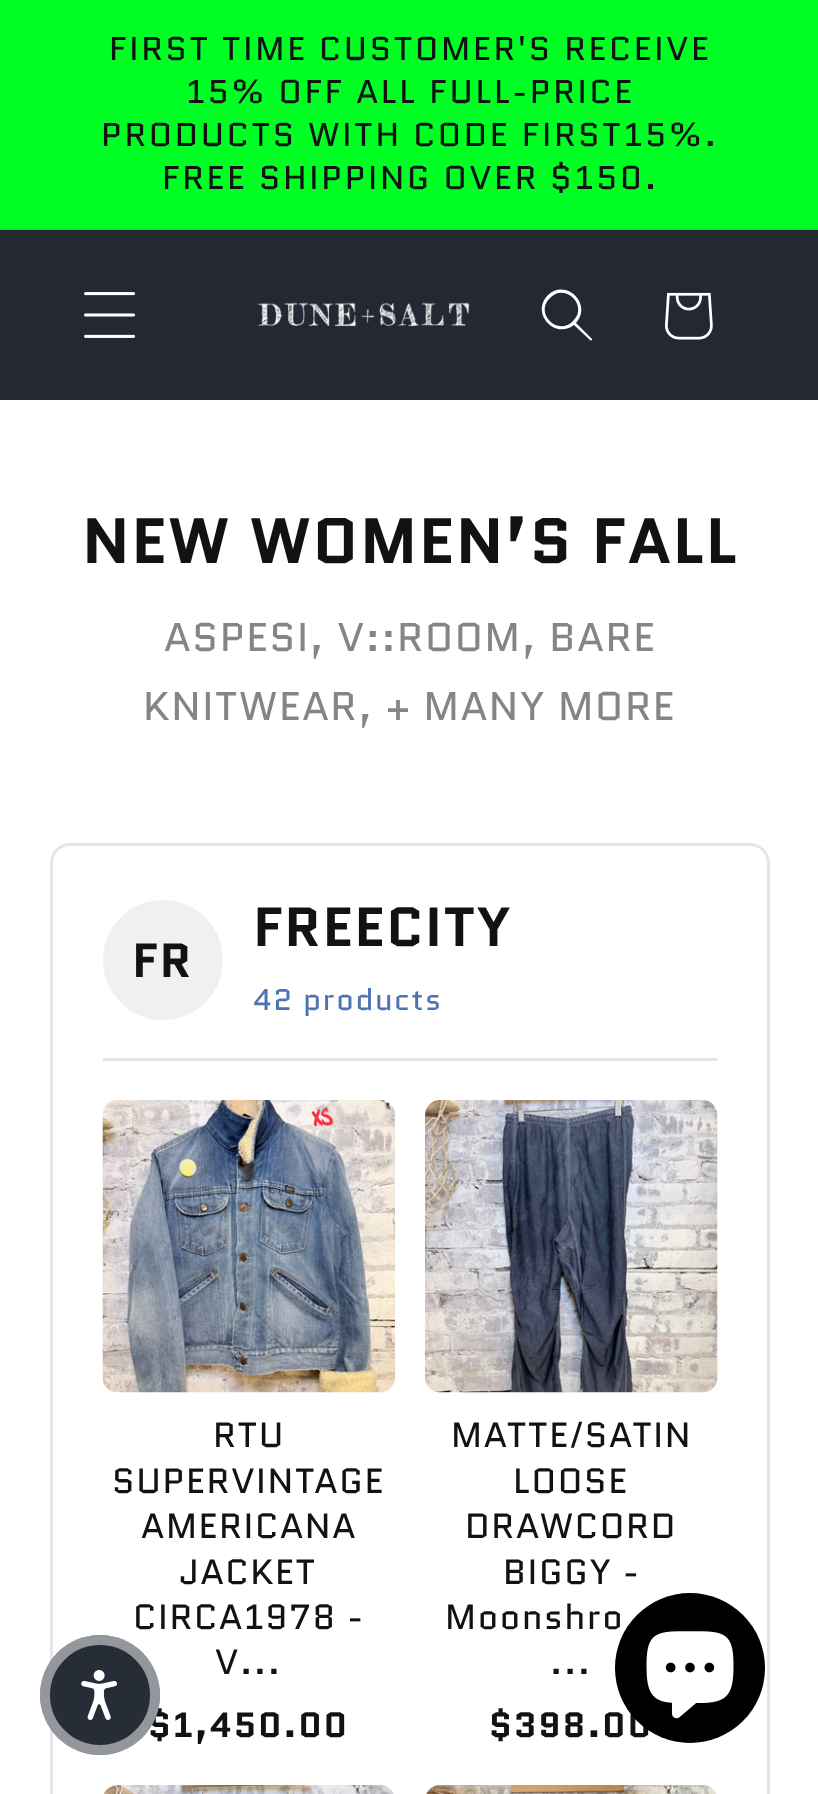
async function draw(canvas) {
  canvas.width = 818
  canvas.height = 1794
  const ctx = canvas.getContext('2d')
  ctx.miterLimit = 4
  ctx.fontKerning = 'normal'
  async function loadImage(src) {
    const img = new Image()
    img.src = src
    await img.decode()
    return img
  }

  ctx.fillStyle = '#fff'
  ctx.fillRect(0, 0, 818, 1794)
  ctx.fillStyle = '#00ff25'
  ctx.fillRect(0, 0, 818, 228)
  ctx.fillStyle = '#01ec23'
  ctx.fillRect(0, 228, 818, 2)
  ctx.letterSpacing = '2.75px'
  ctx.font = '33px Quantico'
  ctx.fillStyle = '#121212'
  ctx.fillText('FIRST TIME CUSTOMER\'S RECEIVE', 109, 60)
  ctx.fillText('15% OFF ALL FULL-PRICE', 186, 103)
  ctx.fillText('PRODUCTS WITH CODE FIRST15%.', 101, 146)
  ctx.fillText('FREE SHIPPING OVER $150.', 162, 189)
  ctx.fillStyle = '#242833'
  ctx.fillRect(0, 231, 818, 169)
  ctx.fillStyle = '#232630'
  ctx.fillRect(0, 230, 818, 1)
  ctx.drawImage(await loadImage('image0.png'), 84, 292, 52, 46)
  ctx.drawImage(await loadImage('image1.png'), 257, 302, 213, 25)
  ctx.fillStyle = '#fff'
  ctx.beginPath()
  ctx.moveTo(573, 321)
  ctx.bezierCurveTo(558, 337, 534, 313, 550, 298)
  ctx.bezierCurveTo(565, 282, 589, 306, 573, 321)
  ctx.moveTo(574, 325)
  ctx.bezierCurveTo(555, 340, 530, 313, 548, 295)
  ctx.bezierCurveTo(566, 278, 593, 304, 576, 323)
  ctx.lineTo(592, 339)
  ctx.bezierCurveTo(593, 340, 591, 341, 590, 340)
  ctx.closePath()
  ctx.fill('evenodd')
  ctx.drawImage(await loadImage('image2.png'), 665, 292, 48, 48)
  ctx.letterSpacing = '1.65px'
  ctx.font = 'bold 64px Quantico'
  ctx.fillStyle = '#121212'
  ctx.fillText('NEW WOMEN’S FALL', 82, 563)
  ctx.font = '40px Quantico'
  ctx.fillStyle = '#858585'
  ctx.fillText('ASPESI, V::ROOM, BARE', 164, 651)
  ctx.fillText('KNITWEAR, + MANY MORE', 143, 720)
  ctx.beginPath()
  ctx.roundRect(51.5, 844.5, 717, 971, 18.5)
  ctx.strokeStyle = '#e5e5e5'
  ctx.lineWidth = 3
  ctx.stroke()
  ctx.fillStyle = '#e5e5e5'
  ctx.fillRect(103, 1058, 615, 3)
  ctx.fillStyle = '#f0f0f0'
  ctx.beginPath()
  ctx.arc(163, 960, 60, 0, 2 * Math.PI)
  ctx.fill()
  ctx.font = 'bold 48px Quantico'
  ctx.fillStyle = '#121212'
  ctx.fillText('FR', 132, 977)
  ctx.font = 'bold 55px Quantico'
  ctx.fillText('FREECITY', 253, 946)
  ctx.font = '30px Quantico'
  ctx.fillStyle = '#4d73b3'
  ctx.fillText('42 products', 253, 1010)
  ctx.drawImage(await loadImage('image3.png'), 102, 1100, 293, 293)
  ctx.font = '35px Quantico'
  ctx.fillStyle = '#121212'
  ctx.fillText('RTU', 213, 1447)
  ctx.fillText('SUPERVINTAGE', 112, 1493)
  ctx.fillText('AMERICANA', 141, 1538)
  ctx.fillText('JACKET', 180, 1584)
  ctx.fillText('CIRCA1978 -', 133, 1629)
  ctx.fillText('V...', 215, 1674)
  ctx.font = 'bold 35px Quantico'
  ctx.fillText('$1,450.00', 148, 1737)
  ctx.drawImage(await loadImage('image4.png'), 425, 1100, 293, 293)
  ctx.font = '35px Quantico'
  ctx.fillText('MATTE/SATIN', 451, 1447)
  ctx.fillText('LOOSE', 513, 1493)
  ctx.fillText('DRAWCORD', 465, 1538)
  ctx.fillText('BIGGY -', 503, 1584)
  ctx.fillText('Moonshro', 445, 1629)
  ctx.fillText('...', 550, 1674)
  ctx.font = 'bold 35px Quantico'
  ctx.fillText('$398.00', 489, 1737)
  ctx.drawImage(await loadImage('image5.png'), 103, 1785, 291, 9)
  ctx.drawImage(await loadImage('image6.png'), 426, 1785, 290, 9)
  ctx.fillStyle = '#272d36'
  ctx.beginPath()
  ctx.arc(100, 1695, 60, 0, 2 * Math.PI)
  ctx.fill()
  ctx.beginPath()
  ctx.arc(100, 1695, 55, 0, 2 * Math.PI)
  ctx.strokeStyle = '#ffffff80'
  ctx.lineWidth = 10
  ctx.stroke()
  ctx.drawImage(await loadImage('image7.png'), 81, 1670, 36, 50)
  ctx.fillStyle = '#000'
  ctx.beginPath()
  ctx.arc(690, 1668, 75, 0, 2 * Math.PI)
  ctx.fill()
  ctx.drawImage(await loadImage('image8.png'), 646, 1631, 88, 88)
}

draw(document.querySelector('canvas'))
